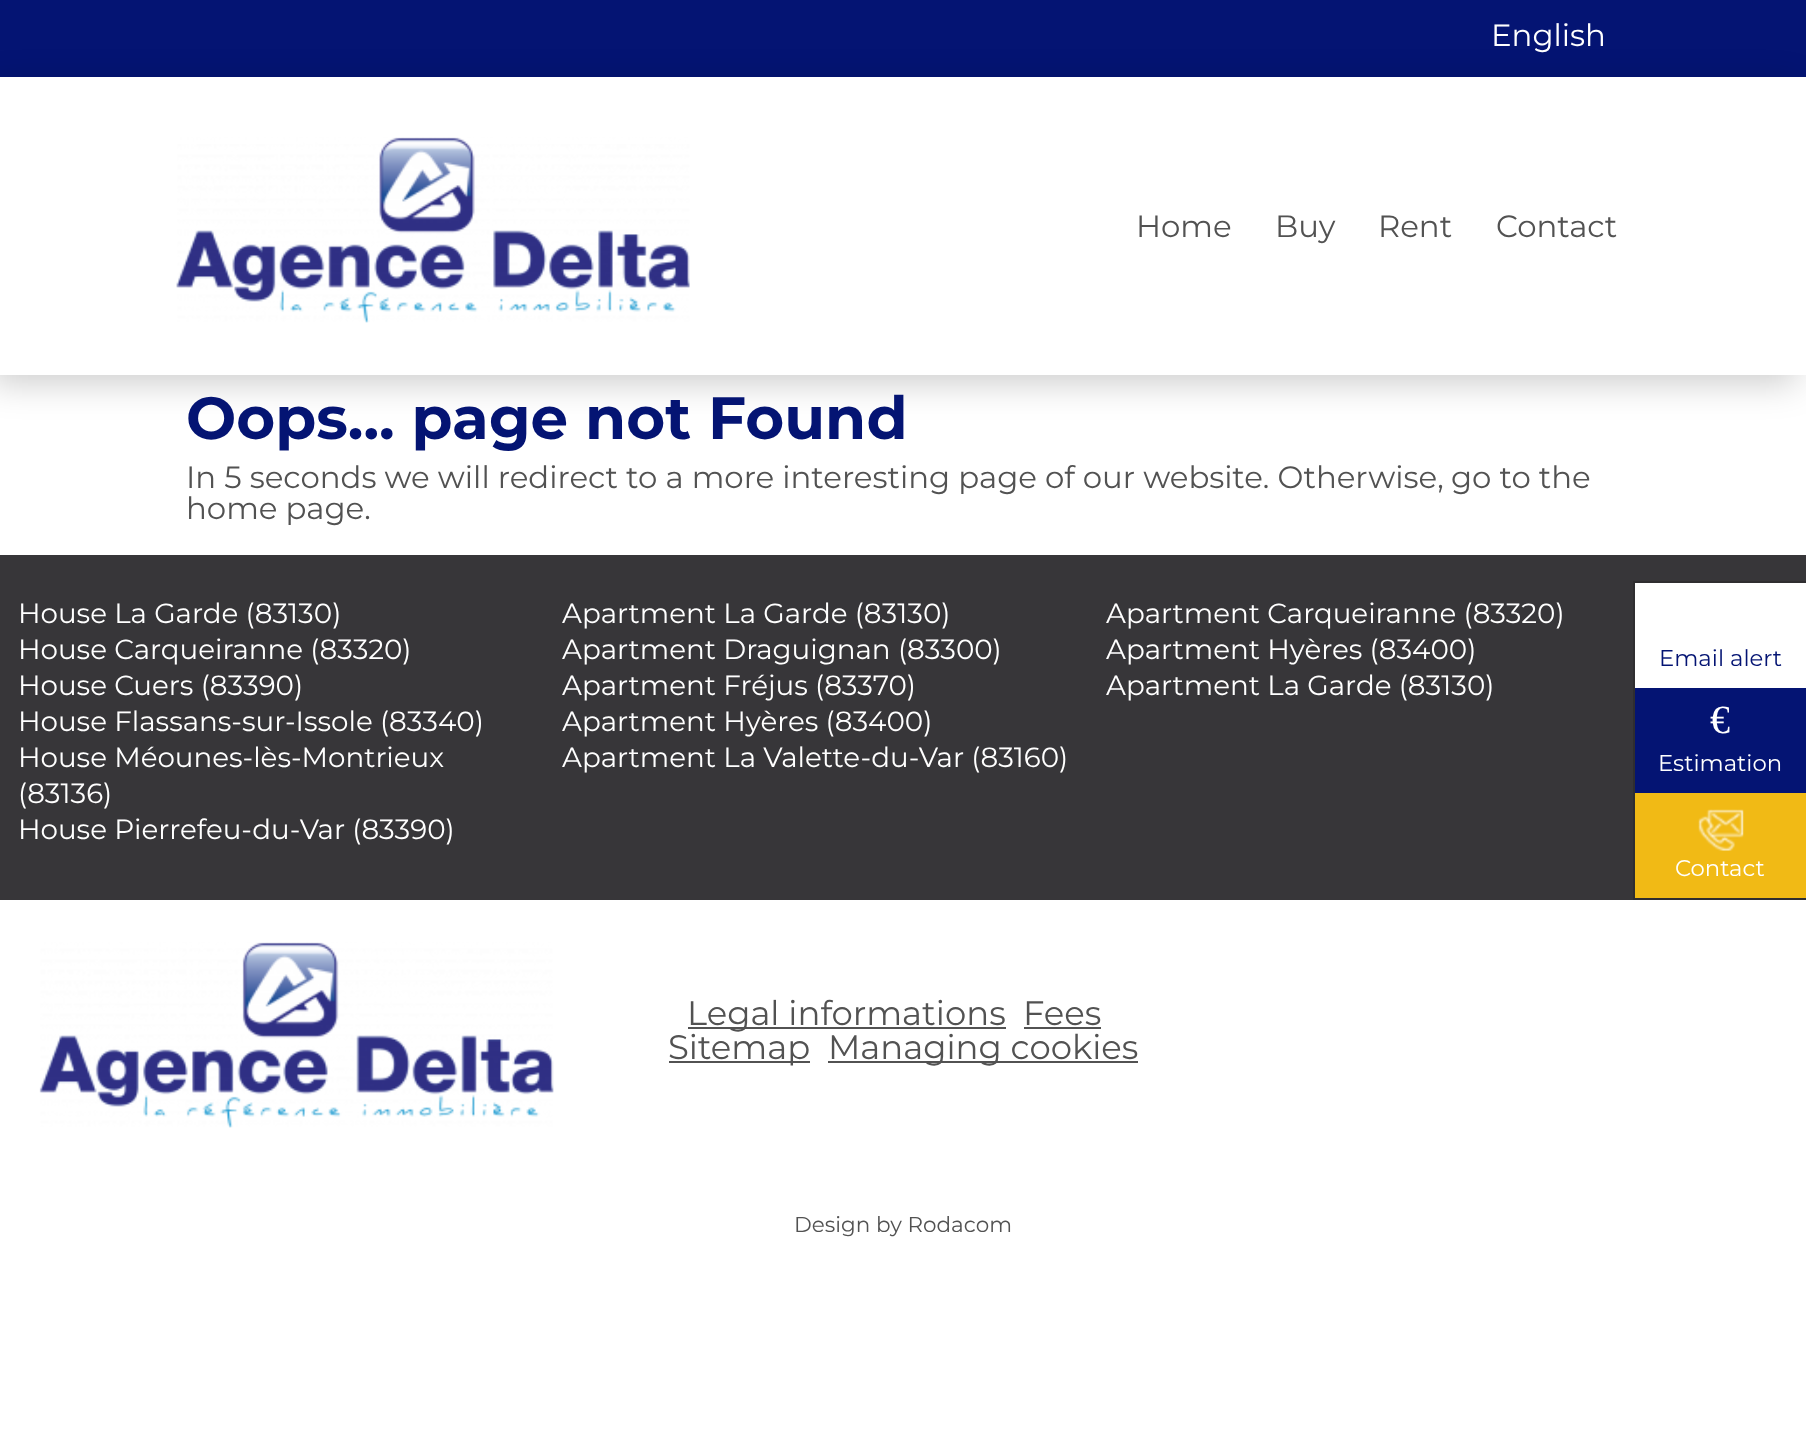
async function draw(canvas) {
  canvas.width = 1806
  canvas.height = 1450
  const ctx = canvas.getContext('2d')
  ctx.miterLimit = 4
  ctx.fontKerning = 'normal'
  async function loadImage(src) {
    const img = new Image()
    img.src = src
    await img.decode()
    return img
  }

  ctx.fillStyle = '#fff'
  ctx.fillRect(0, 0, 1806, 1450)
  ctx.fillStyle = '#041473'
  ctx.fillRect(0, 0, 1806, 77)
  ctx.save()
  ctx.beginPath()
  ctx.moveTo(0, 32)
  ctx.lineTo(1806, 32)
  ctx.lineTo(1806, 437)
  ctx.lineTo(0, 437)
  ctx.closePath()
  ctx.moveTo(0, 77)
  ctx.lineTo(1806, 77)
  ctx.lineTo(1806, 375)
  ctx.lineTo(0, 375)
  ctx.closePath()
  ctx.clip('evenodd')
  ctx.fillStyle = '#00000033'
  ctx.filter = 'blur(17.5px)'
  ctx.beginPath()
  ctx.rect(-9, 86, 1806, 297)
  ctx.fill()
  ctx.filter = 'none'
  ctx.restore()
  ctx.font = '30.8px Montserrat'
  ctx.fillStyle = '#fff'
  ctx.fillText('English', 1491, 46)
  ctx.drawImage(await loadImage('image0.png'), 176, 137, 514, 186)
  ctx.fillStyle = '#525252'
  ctx.fillText('Home', 1136, 237)
  ctx.fillText('Buy', 1275, 237)
  ctx.fillText('Rent', 1378, 237)
  ctx.fillText('Contact', 1496, 237)
  ctx.font = 'bold 59.5px Montserrat'
  ctx.fillStyle = '#041473'
  ctx.fillText('Oops... page not Found', 186, 439)
  ctx.font = '30.8px Montserrat'
  ctx.fillStyle = '#525252'
  ctx.fillText('In 5 seconds we will redirect to a more interesting page of our website. Otherwise,', 186, 488)
  ctx.fillText('go to the', 1451, 488)
  ctx.fillText('home page.', 186, 519)
  ctx.fillStyle = '#373639'
  ctx.fillRect(0, 555, 1806, 345)
  ctx.font = '27.75px Montserrat'
  ctx.fillStyle = '#fff'
  ctx.fillText('House La Garde (83130)', 18, 623)
  ctx.fillText('House Carqueiranne (83320)', 18, 659)
  ctx.fillText('House Cuers (83390)', 18, 695)
  ctx.fillText('House Flassans-sur-Issole (83340)', 18, 731)
  ctx.fillText('House Méounes-lès-Montrieux', 18, 767)
  ctx.fillText('(83136)', 18, 803)
  ctx.fillText('House Pierrefeu-du-Var (83390)', 18, 839)
  ctx.fillText('Apartment La Garde (83130)', 562, 623)
  ctx.fillText('Apartment Draguignan (83300)', 562, 659)
  ctx.fillText('Apartment Fréjus (83370)', 562, 695)
  ctx.fillText('Apartment Hyères (83400)', 562, 731)
  ctx.fillText('Apartment La Valette-du-Var (83160)', 562, 767)
  ctx.fillText('Apartment Carqueiranne (83320)', 1106, 623)
  ctx.fillText('Apartment Hyères (83400)', 1106, 659)
  ctx.fillText('Apartment La Garde (83130)', 1106, 695)
  ctx.drawImage(await loadImage('image1.png'), 39, 942, 515, 186)
  ctx.fillStyle = '#525252'
  ctx.fillRect(688, 1027, 318, 2)
  ctx.font = '33.9px Montserrat'
  ctx.fillText('Legal informations', 687, 1025)
  ctx.fillText('Fees', 1023, 1025)
  ctx.fillRect(1024, 1027, 77, 2)
  ctx.fillRect(669, 1061, 141, 2)
  ctx.fillText('Sitemap', 668, 1059)
  ctx.fillRect(828, 1061, 310, 2)
  ctx.fillText('Managing cookies', 828, 1059)
  ctx.font = '21.5px Montserrat'
  ctx.fillText('Design by Rodacom', 794, 1232)
  ctx.strokeStyle = '#2f2e30'
  ctx.lineWidth = 2
  ctx.strokeRect(1634, 582, 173, 317)
  ctx.fillStyle = '#fff'
  ctx.fillRect(1635, 583, 171, 105)
  ctx.font = '22.75px Montserrat'
  ctx.fillStyle = '#041473'
  ctx.fillText('Email alert', 1659, 666)
  ctx.fillRect(1635, 688, 171, 105)
  ctx.font = '40px Liberation Serif'
  ctx.fillStyle = '#fff'
  ctx.fillText('€', 1710, 733)
  ctx.font = '22.75px Montserrat'
  ctx.fillText('Estimation', 1658, 771)
  ctx.fillStyle = '#f1ba15'
  ctx.fillRect(1635, 793, 171, 105)
  ctx.drawImage(await loadImage('image2.png'), 1698, 809, 46, 42)
  ctx.fillStyle = '#fff'
  ctx.fillText('Contact', 1675, 876)
}

draw(document.querySelector('canvas'))
